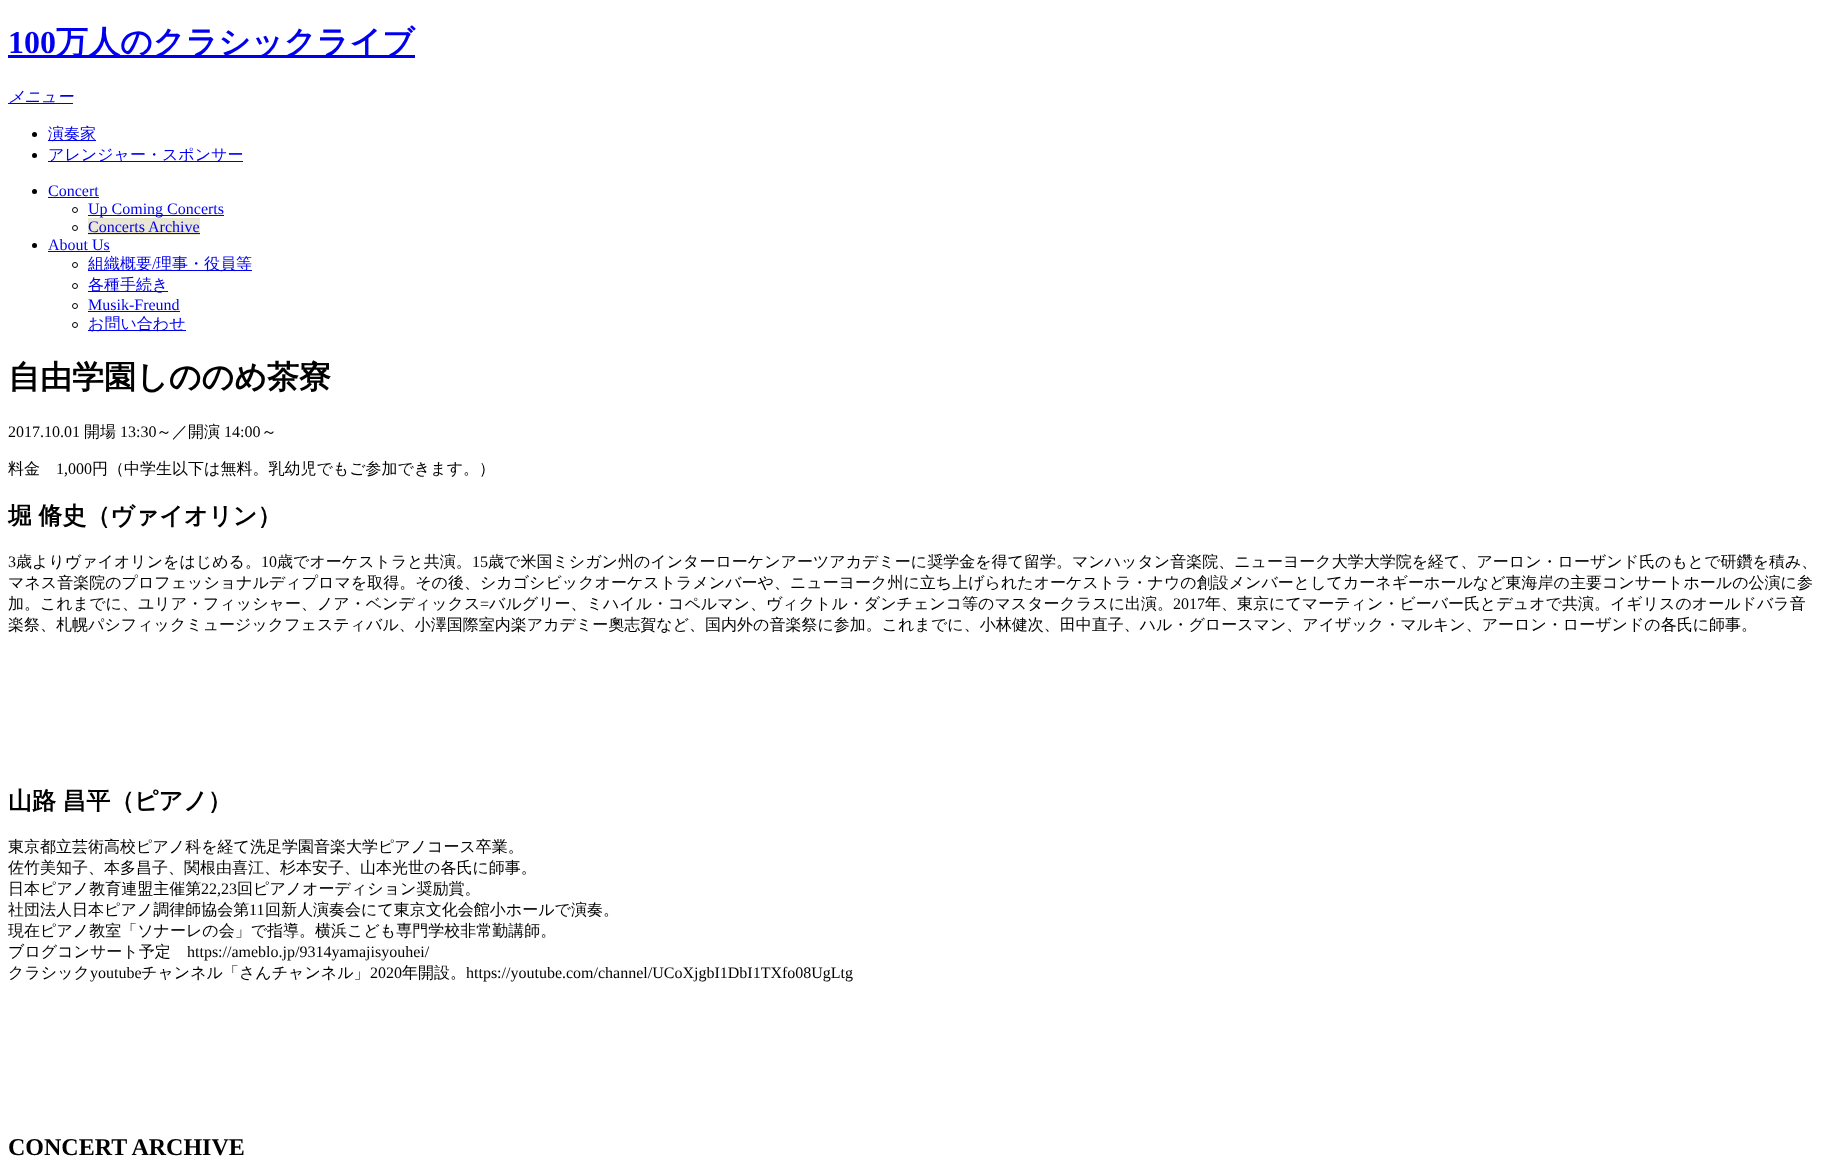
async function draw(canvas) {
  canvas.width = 1825
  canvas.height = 1173
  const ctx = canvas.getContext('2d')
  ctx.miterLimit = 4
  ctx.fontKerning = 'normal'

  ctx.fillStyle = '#fff'
  ctx.fillRect(0, 0, 1825, 1173)
  ctx.font = 'bold 32px Liberation Serif'
  ctx.fillStyle = '#00e'
  ctx.fillText('100', 8, 53)
  ctx.fillRect(8, 55, 407, 3)
  ctx.font = 'bold 32px WenQuanYi Zen Hei'
  ctx.fillText('万人のクラシックライブ', 56, 53)
  ctx.font = 'italic 500 16px WenQuanYi Zen Hei'
  ctx.fillText('メニュー', 8, 102)
  ctx.fillRect(8, 103, 65, 1)
  ctx.fillStyle = '#000'
  ctx.beginPath()
  ctx.arc(34.5, 134.5, 2.5, 0, 2 * Math.PI)
  ctx.fill()
  ctx.fillStyle = '#00e'
  ctx.fillRect(48, 140, 48, 1)
  ctx.font = '500 16px WenQuanYi Zen Hei'
  ctx.fillText('演奏家', 48, 139)
  ctx.fillStyle = '#000'
  ctx.beginPath()
  ctx.arc(34.5, 155.5, 2.5, 0, 2 * Math.PI)
  ctx.fill()
  ctx.fillStyle = '#00e'
  ctx.fillRect(48, 161, 195, 1)
  ctx.fillText('アレンジャー・スポンサー', 48, 160)
  ctx.fillStyle = '#000'
  ctx.beginPath()
  ctx.arc(34.5, 191.5, 2.5, 0, 2 * Math.PI)
  ctx.fill()
  ctx.font = '16px Liberation Serif'
  ctx.fillStyle = '#00e'
  ctx.fillText('Concert', 48, 196)
  ctx.fillRect(48, 197, 51, 1)
  ctx.beginPath()
  ctx.arc(75, 210, 2.5, 0, 2 * Math.PI)
  ctx.strokeStyle = '#000'
  ctx.stroke()
  ctx.fillRect(88, 215, 136, 1)
  ctx.fillText('Up Coming Concerts', 88, 214)
  ctx.beginPath()
  ctx.arc(75, 228, 2.5, 0, 2 * Math.PI)
  ctx.stroke()
  ctx.fillStyle = '#ebe7d5'
  ctx.fillRect(88, 218, 112, 17)
  ctx.fillStyle = '#00e'
  ctx.fillText('Concerts Archive', 88, 232)
  ctx.fillRect(88, 233, 112, 1)
  ctx.fillStyle = '#000'
  ctx.beginPath()
  ctx.arc(34.5, 245.5, 2.5, 0, 2 * Math.PI)
  ctx.fill()
  ctx.fillStyle = '#00e'
  ctx.fillText('About Us', 48, 250)
  ctx.fillRect(48, 251, 62, 1)
  ctx.beginPath()
  ctx.arc(75, 265, 2.5, 0, 2 * Math.PI)
  ctx.stroke()
  ctx.fillRect(88, 270, 164, 1)
  ctx.font = '500 16px WenQuanYi Zen Hei'
  ctx.fillText('組織概要', 88, 269)
  ctx.font = '16px Liberation Serif'
  ctx.fillText('/', 152, 269)
  ctx.font = '500 16px WenQuanYi Zen Hei'
  ctx.fillText('理事・役員等', 156, 269)
  ctx.beginPath()
  ctx.arc(75, 286, 2.5, 0, 2 * Math.PI)
  ctx.stroke()
  ctx.fillRect(88, 291, 80, 1)
  ctx.fillText('各種手続き', 88, 290)
  ctx.beginPath()
  ctx.arc(75, 306, 2.5, 0, 2 * Math.PI)
  ctx.stroke()
  ctx.font = '16px Liberation Serif'
  ctx.fillText('Musik-Freund', 88, 310)
  ctx.fillRect(88, 311, 92, 1)
  ctx.beginPath()
  ctx.arc(75, 325, 2.5, 0, 2 * Math.PI)
  ctx.stroke()
  ctx.fillRect(88, 330, 98, 1)
  ctx.font = '500 16px WenQuanYi Zen Hei'
  ctx.fillText('お問い合わせ', 88, 329)
  ctx.font = 'bold 32px WenQuanYi Zen Hei'
  ctx.fillStyle = '#000'
  ctx.fillText('自由学園しののめ茶寮', 8, 388)
  ctx.font = '16px Liberation Serif'
  ctx.fillText('2017.10.01', 8, 437)
  ctx.font = '500 16px WenQuanYi Zen Hei'
  ctx.fillText('開場', 84, 437)
  ctx.font = '16px Liberation Serif'
  ctx.fillText('13:30', 120, 437)
  ctx.font = '500 16px WenQuanYi Zen Hei'
  ctx.fillText('～／開演', 156, 437)
  ctx.font = '16px Liberation Serif'
  ctx.fillText('14:00', 224, 437)
  ctx.font = '500 16px WenQuanYi Zen Hei'
  ctx.fillText('～', 261, 437)
  ctx.fillText('料金', 8, 474)
  ctx.font = '16px Liberation Serif'
  ctx.fillText('1,000', 56, 474)
  ctx.font = '500 16px WenQuanYi Zen Hei'
  ctx.fillText('円（中学生以下は無料。乳幼児でもご参加できます。）', 92, 474)
  ctx.wordSpacing = '-1px'
  ctx.font = 'bold 24px WenQuanYi Zen Hei'
  ctx.fillText('堀 脩史', 8, 524)
  ctx.wordSpacing = '0px'
  ctx.fillText('（ヴァイオリン）', 86, 524)
  ctx.font = '16px Liberation Serif'
  ctx.fillText('3', 8, 567)
  ctx.font = '500 16px WenQuanYi Zen Hei'
  ctx.fillText('歳よりヴァイオリンをはじめる。', 16, 567)
  ctx.font = '16px Liberation Serif'
  ctx.fillText('10', 261, 567)
  ctx.font = '500 16px WenQuanYi Zen Hei'
  ctx.fillText('歳でオーケストラと共演。', 277, 567)
  ctx.font = '16px Liberation Serif'
  ctx.fillText('15', 472, 567)
  ctx.font = '500 16px WenQuanYi Zen Hei'
  ctx.fillText('歳で米国ミシガン州のインターローケンアーツアカデミーに奨学金を得て留学。マンハッタン音楽院、ニューヨーク大学大学院を経て、アーロン・ローザンド氏のもとで研鑽を積み、', 488, 567)
  ctx.fillText('マネス音楽院のプロフェッショナルディプロマを取得。その後、シカゴシビックオーケストラメンバーや、ニューヨーク州に立ち上げられたオーケストラ・ナウの創設メンバーとしてカーネギーホールなど東海岸の主要コンサートホールの公演に参', 8, 588)
  ctx.fillText('加。これまでに、ユリア・フィッシャー、ノア・ベンディックス', 8, 609)
  ctx.font = '16px Liberation Serif'
  ctx.fillText('=', 480, 609)
  ctx.font = '500 16px WenQuanYi Zen Hei'
  ctx.fillText('バルグリー、ミハイル・コペルマン、ヴィクトル・ダンチェンコ等のマスタークラスに出演。', 489, 609)
  ctx.font = '16px Liberation Serif'
  ctx.fillText('2017', 1173, 609)
  ctx.font = '500 16px WenQuanYi Zen Hei'
  ctx.fillText('年、東京にてマーティン・ビーバー氏とデュオで共演。イギリスのオールドバラ音', 1205, 609)
  ctx.fillText('楽祭、札幌パシフィックミュージックフェスティバル、小澤国際室内楽アカデミー奧志賀など、国内外の音楽祭に参加。これまでに、小林健次、田中直子、ハル・グロースマン、アイザック・マルキン、アーロン・ローザンドの各氏に師事。', 8, 630)
  ctx.wordSpacing = '-1px'
  ctx.font = 'bold 24px WenQuanYi Zen Hei'
  ctx.fillText('山路 昌平', 8, 809)
  ctx.wordSpacing = '0px'
  ctx.fillText('（ピアノ）', 110, 809)
  ctx.font = '500 16px WenQuanYi Zen Hei'
  ctx.fillText('東京都立芸術高校ピアノ科を経て洗足学園音楽大学ピアノコース卒業。', 8, 852)
  ctx.fillText('佐竹美知子、本多昌子、関根由喜江、杉本安子、山本光世の各氏に師事。', 8, 873)
  ctx.fillText('日本ピアノ教育連盟主催第', 8, 894)
  ctx.font = '16px Liberation Serif'
  ctx.fillText('22,23', 201, 894)
  ctx.font = '500 16px WenQuanYi Zen Hei'
  ctx.fillText('回ピアノオーディション奨励賞。', 237, 894)
  ctx.fillText('社団法人日本ピアノ調律師協会第', 8, 915)
  ctx.font = '16px Liberation Serif'
  ctx.fillText('11', 249, 915)
  ctx.font = '500 16px WenQuanYi Zen Hei'
  ctx.fillText('回新人演奏会にて東京文化会館小ホールで演奏。', 265, 915)
  ctx.fillText('現在ピアノ教室「ソナーレの会」で指導。横浜こども専門学校非常勤講師。', 8, 936)
  ctx.fillText('ブログコンサート予定', 8, 957)
  ctx.font = '16px Liberation Serif'
  ctx.fillText('https://ameblo.jp/9314yamajisyouhei/', 187, 957)
  ctx.font = '500 16px WenQuanYi Zen Hei'
  ctx.fillText('クラシック', 8, 978)
  ctx.font = '16px Liberation Serif'
  ctx.fillText('youtube', 90, 978)
  ctx.font = '500 16px WenQuanYi Zen Hei'
  ctx.fillText('チャンネル「さんチャンネル」', 141, 978)
  ctx.font = '16px Liberation Serif'
  ctx.fillText('2020', 370, 978)
  ctx.font = '500 16px WenQuanYi Zen Hei'
  ctx.fillText('年開設。', 402, 978)
  ctx.font = '16px Liberation Serif'
  ctx.fillText('https://youtube.com/channel/UCoXjgbI1DbI1TXfo08UgLtg', 466, 978)
  ctx.font = 'bold 24px Liberation Serif'
  ctx.fillText('CONCERT ARCHIVE', 8, 1155)
}

draw(document.querySelector('canvas'))
